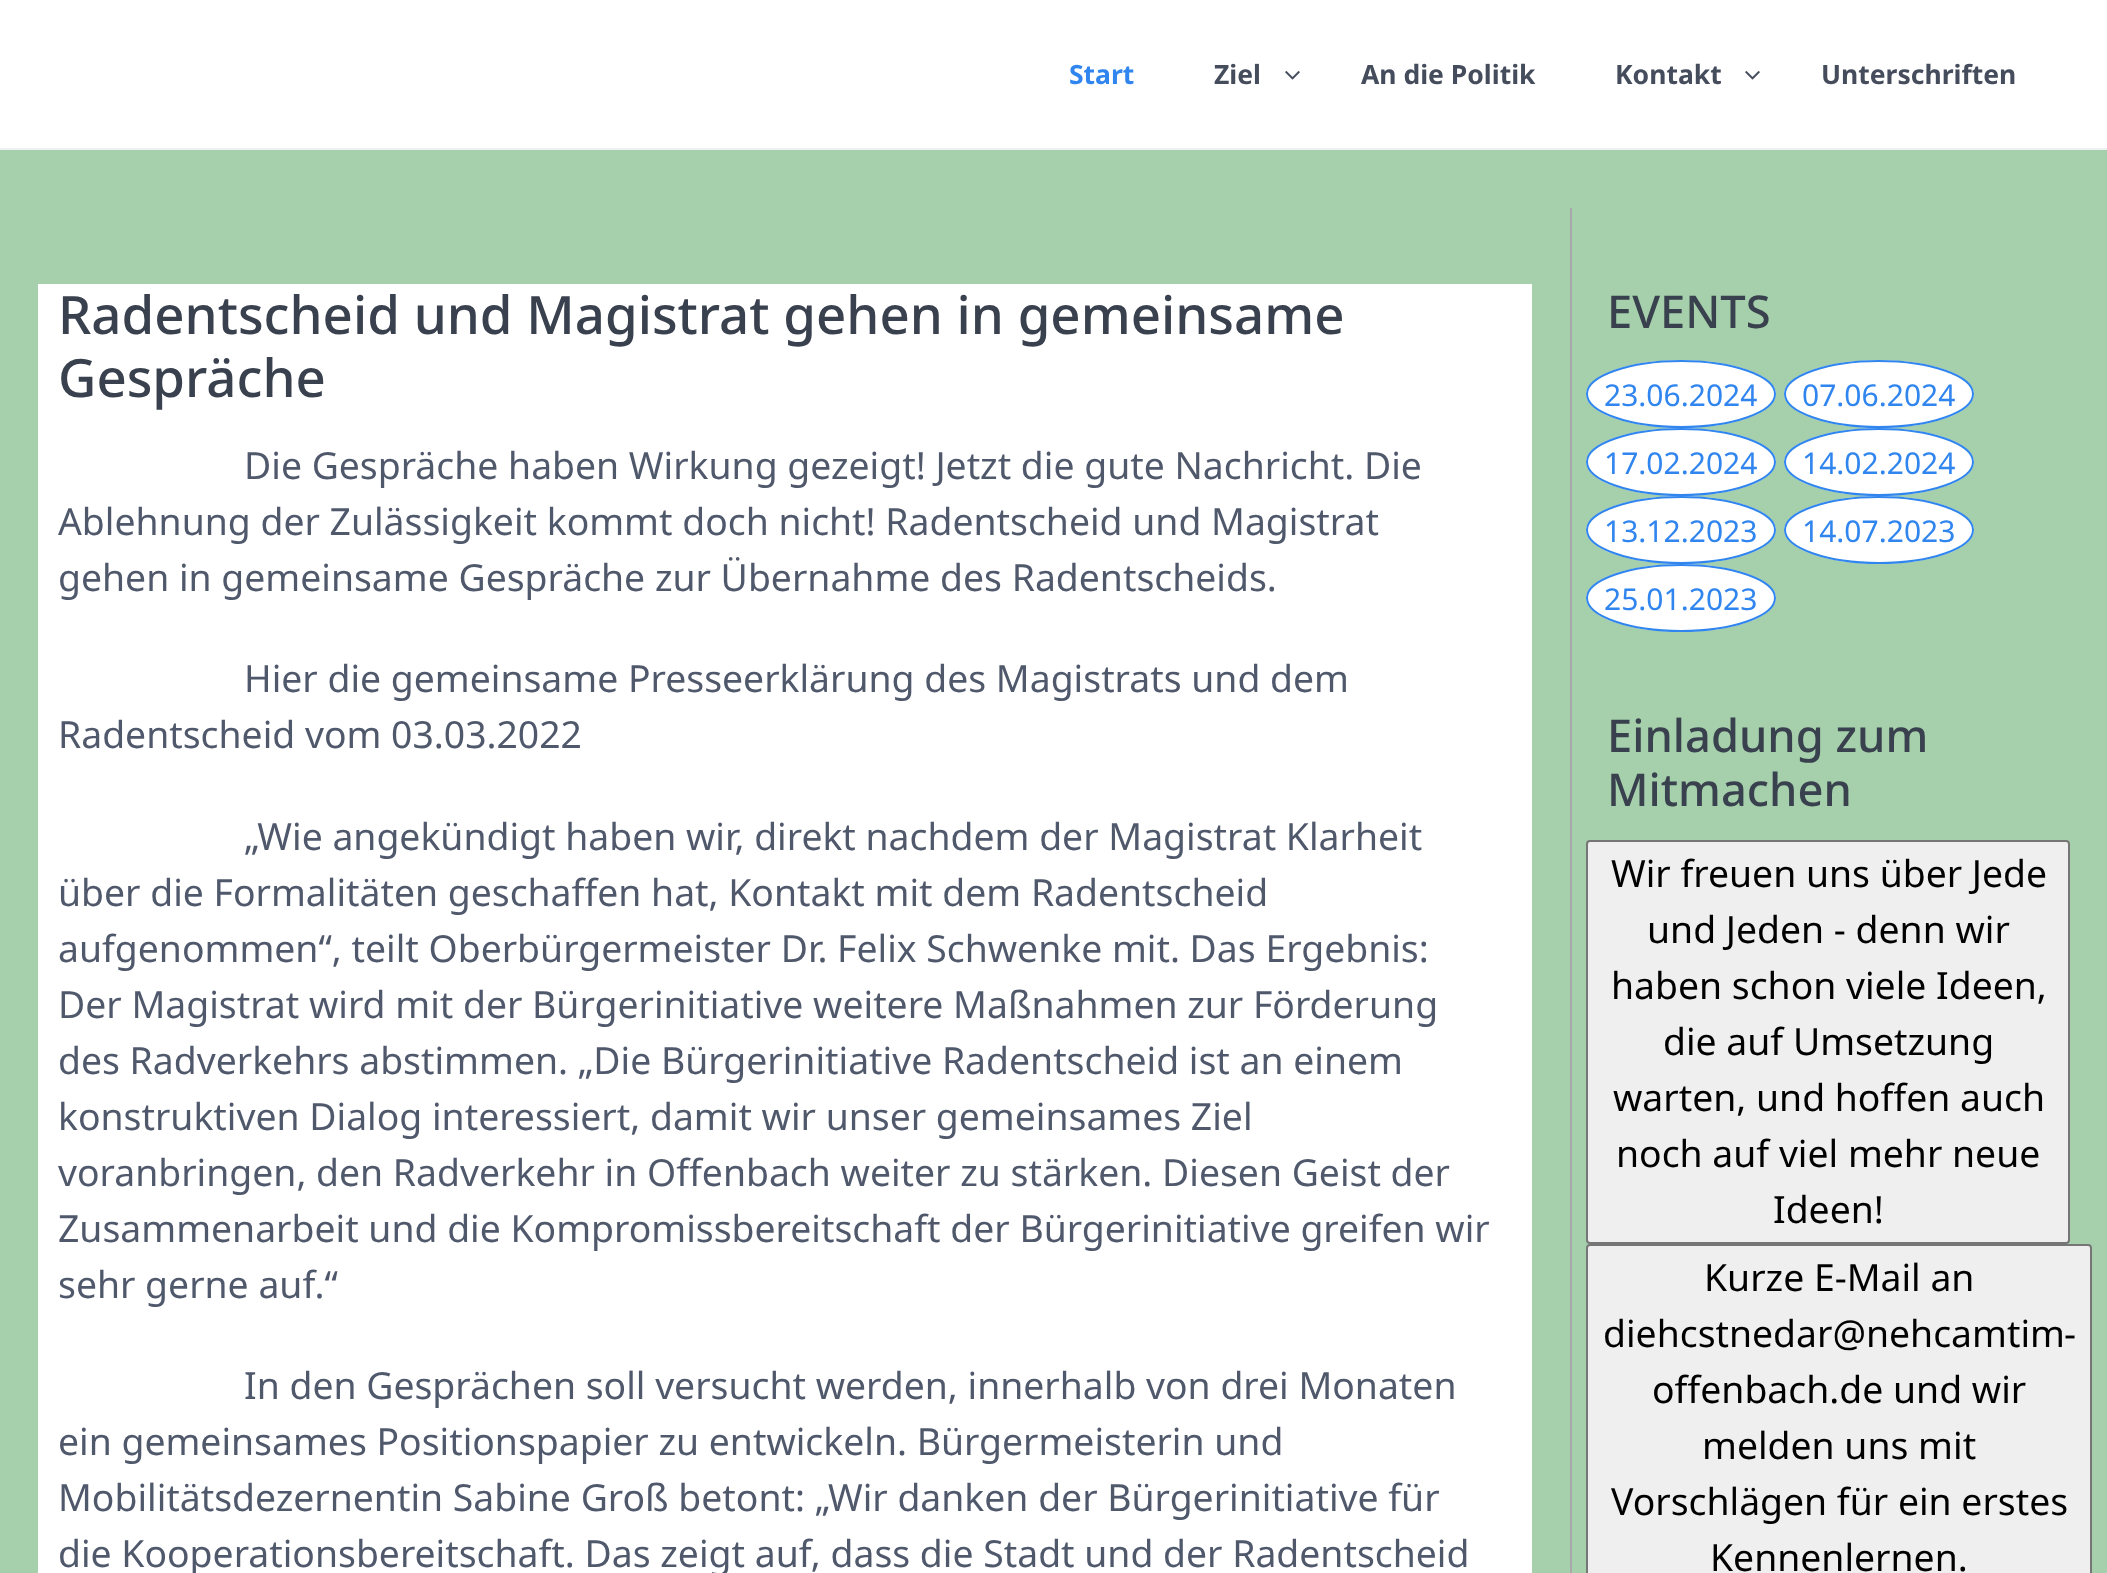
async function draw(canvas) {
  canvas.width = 2107
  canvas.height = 1573
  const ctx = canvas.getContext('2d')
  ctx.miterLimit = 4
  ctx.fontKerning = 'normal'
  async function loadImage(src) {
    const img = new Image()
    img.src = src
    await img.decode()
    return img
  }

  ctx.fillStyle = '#a5d0ab'
  ctx.fillRect(0, 0, 2107, 1573)
  ctx.fillStyle = '#fff'
  ctx.fillRect(0, 0, 2107, 148)
  ctx.fillStyle = '#eef0f3'
  ctx.fillRect(0, 148, 2107, 2)
  ctx.font = 'bold 26.5px Noto Sans'
  ctx.fillStyle = '#3085ee'
  ctx.fillText('Start', 1069, 84)
  ctx.fillStyle = '#454d5d'
  ctx.fillText('Ziel', 1214, 84)
  ctx.drawImage(await loadImage('image0.png'), 1285, 71, 15, 9)
  ctx.fillText('An die Politik', 1361, 84)
  ctx.fillText('Kontakt', 1615, 84)
  ctx.drawImage(await loadImage('image0.png'), 1745, 71, 15, 9)
  ctx.fillText('Unterschriften', 1821, 84)
  ctx.fillStyle = '#fff'
  ctx.fillRect(38, 284, 1494, 1289)
  ctx.font = '500 52.8px Noto Sans'
  ctx.fillStyle = '#3a414e'
  ctx.fillText('Radentscheid und Magistrat gehen in gemeinsame', 58, 334)
  ctx.fillText('Gespräche', 58, 397)
  ctx.font = '37.35px Noto Sans'
  ctx.fillStyle = '#50596c'
  ctx.fillText('Die Gespräche haben Wirkung gezeigt! Jetzt die gute Nachricht. Die', 244, 479)
  ctx.fillText('Ablehnung der Zulässigkeit kommt doch nicht! Radentscheid und Magistrat', 58, 535)
  ctx.fillText('gehen in gemeinsame Gespräche zur Übernahme des Radentscheids.', 58, 591)
  ctx.fillText('Hier die gemeinsame Presseerklärung des Magistrats und dem', 244, 692)
  ctx.fillText('Radentscheid vom 03.03.2022', 58, 748)
  ctx.fillText('„Wie angekündigt haben wir, direkt nachdem der Magistrat Klarheit', 244, 850)
  ctx.fillText('über die Formalitäten geschaffen hat, Kontakt mit dem Radentscheid', 58, 906)
  ctx.fillText('aufgenommen“, teilt Oberbürgermeister Dr. Felix Schwenke mit. Das Ergebnis:', 58, 962)
  ctx.fillText('Der Magistrat wird mit der Bürgerinitiative weitere Maßnahmen zur Förderung', 58, 1018)
  ctx.fillText('des Radverkehrs abstimmen. „Die Bürgerinitiative Radentscheid ist an einem', 58, 1074)
  ctx.fillText('konstruktiven Dialog interessiert, damit wir unser gemeinsames Ziel', 58, 1130)
  ctx.fillText('voranbringen, den Radverkehr in Offenbach weiter zu stärken. Diesen Geist der', 58, 1186)
  ctx.fillText('Zusammenarbeit und die Kompromissbereitschaft der Bürgerinitiative greifen wir', 58, 1242)
  ctx.fillText('sehr gerne auf.“', 58, 1298)
  ctx.fillText('In den Gesprächen soll versucht werden, innerhalb von drei Monaten', 244, 1399)
  ctx.fillText('ein gemeinsames Positionspapier zu entwickeln. Bürgermeisterin und', 58, 1455)
  ctx.fillText('Mobilitätsdezernentin Sabine Groß betont: „Wir danken der Bürgerinitiative für', 58, 1511)
  ctx.fillText('die Kooperationsbereitschaft. Das zeigt auf, dass die Stadt und der Radentscheid', 58, 1567)
  ctx.fillStyle = '#a9a9a9'
  ctx.fillRect(1570, 208, 2, 1365)
  ctx.font = '500 45.25px Noto Sans'
  ctx.fillStyle = '#3a414e'
  ctx.fillText('EVENTS', 1607, 328)
  ctx.fillStyle = '#fff'
  ctx.beginPath()
  ctx.ellipse(1681, 394, 95, 34, 0, 0, 2 * Math.PI)
  ctx.fill()
  ctx.beginPath()
  ctx.moveTo(1681, 361)
  ctx.bezierCurveTo(1733, 361, 1775, 376, 1775, 394)
  ctx.bezierCurveTo(1775, 412, 1733, 427, 1681, 427)
  ctx.bezierCurveTo(1629, 427, 1587, 412, 1587, 394)
  ctx.bezierCurveTo(1587, 376, 1629, 361, 1681, 361)
  ctx.closePath()
  ctx.strokeStyle = '#3085ee'
  ctx.lineWidth = 2
  ctx.stroke()
  ctx.font = '30px Noto Sans'
  ctx.fillStyle = '#3085ee'
  ctx.fillText('23.06.2024', 1604, 406)
  ctx.fillStyle = '#fff'
  ctx.beginPath()
  ctx.ellipse(1879, 394, 95, 34, 0, 0, 2 * Math.PI)
  ctx.fill()
  ctx.beginPath()
  ctx.moveTo(1879, 361)
  ctx.bezierCurveTo(1931, 361, 1973, 376, 1973, 394)
  ctx.bezierCurveTo(1973, 412, 1931, 427, 1879, 427)
  ctx.bezierCurveTo(1827, 427, 1785, 412, 1785, 394)
  ctx.bezierCurveTo(1785, 376, 1827, 361, 1879, 361)
  ctx.closePath()
  ctx.stroke()
  ctx.fillStyle = '#3085ee'
  ctx.fillText('07.06.2024', 1802, 406)
  ctx.fillStyle = '#fff'
  ctx.beginPath()
  ctx.ellipse(1681, 462, 95, 34, 0, 0, 2 * Math.PI)
  ctx.fill()
  ctx.beginPath()
  ctx.moveTo(1681, 429)
  ctx.bezierCurveTo(1733, 429, 1775, 444, 1775, 462)
  ctx.bezierCurveTo(1775, 480, 1733, 495, 1681, 495)
  ctx.bezierCurveTo(1629, 495, 1587, 480, 1587, 462)
  ctx.bezierCurveTo(1587, 444, 1629, 429, 1681, 429)
  ctx.closePath()
  ctx.stroke()
  ctx.fillStyle = '#3085ee'
  ctx.fillText('17.02.2024', 1604, 474)
  ctx.fillStyle = '#fff'
  ctx.beginPath()
  ctx.ellipse(1879, 462, 95, 34, 0, 0, 2 * Math.PI)
  ctx.fill()
  ctx.beginPath()
  ctx.moveTo(1879, 429)
  ctx.bezierCurveTo(1931, 429, 1973, 444, 1973, 462)
  ctx.bezierCurveTo(1973, 480, 1931, 495, 1879, 495)
  ctx.bezierCurveTo(1827, 495, 1785, 480, 1785, 462)
  ctx.bezierCurveTo(1785, 444, 1827, 429, 1879, 429)
  ctx.closePath()
  ctx.stroke()
  ctx.fillStyle = '#3085ee'
  ctx.fillText('14.02.2024', 1802, 474)
  ctx.fillStyle = '#fff'
  ctx.beginPath()
  ctx.ellipse(1681, 530, 95, 34, 0, 0, 2 * Math.PI)
  ctx.fill()
  ctx.beginPath()
  ctx.moveTo(1681, 497)
  ctx.bezierCurveTo(1733, 497, 1775, 512, 1775, 530)
  ctx.bezierCurveTo(1775, 548, 1733, 563, 1681, 563)
  ctx.bezierCurveTo(1629, 563, 1587, 548, 1587, 530)
  ctx.bezierCurveTo(1587, 512, 1629, 497, 1681, 497)
  ctx.closePath()
  ctx.stroke()
  ctx.fillStyle = '#3085ee'
  ctx.fillText('13.12.2023', 1604, 542)
  ctx.fillStyle = '#fff'
  ctx.beginPath()
  ctx.ellipse(1879, 530, 95, 34, 0, 0, 2 * Math.PI)
  ctx.fill()
  ctx.beginPath()
  ctx.moveTo(1879, 497)
  ctx.bezierCurveTo(1931, 497, 1973, 512, 1973, 530)
  ctx.bezierCurveTo(1973, 548, 1931, 563, 1879, 563)
  ctx.bezierCurveTo(1827, 563, 1785, 548, 1785, 530)
  ctx.bezierCurveTo(1785, 512, 1827, 497, 1879, 497)
  ctx.closePath()
  ctx.stroke()
  ctx.fillStyle = '#3085ee'
  ctx.fillText('14.07.2023', 1802, 542)
  ctx.fillStyle = '#fff'
  ctx.beginPath()
  ctx.ellipse(1681, 598, 95, 34, 0, 0, 2 * Math.PI)
  ctx.fill()
  ctx.beginPath()
  ctx.moveTo(1681, 565)
  ctx.bezierCurveTo(1733, 565, 1775, 580, 1775, 598)
  ctx.bezierCurveTo(1775, 616, 1733, 631, 1681, 631)
  ctx.bezierCurveTo(1629, 631, 1587, 616, 1587, 598)
  ctx.bezierCurveTo(1587, 580, 1629, 565, 1681, 565)
  ctx.closePath()
  ctx.stroke()
  ctx.fillStyle = '#3085ee'
  ctx.fillText('25.01.2023', 1604, 610)
  ctx.font = '500 45.25px Noto Sans'
  ctx.fillStyle = '#3a414e'
  ctx.fillText('Einladung zum', 1607, 752)
  ctx.fillText('Mitmachen', 1607, 806)
  ctx.fillStyle = '#efefef'
  ctx.beginPath()
  ctx.roundRect(1587, 841, 482, 402, 3)
  ctx.fill()
  ctx.strokeStyle = '#767676'
  ctx.stroke()
  ctx.font = '37.35px Noto Sans'
  ctx.fillStyle = '#000'
  ctx.fillText('Wir freuen uns über Jede', 1611, 887)
  ctx.fillText('und Jeden - denn wir', 1647, 943)
  ctx.fillText('haben schon viele Ideen,', 1611, 999)
  ctx.fillText('die auf Umsetzung', 1663, 1055)
  ctx.fillText('warten, und hoffen auch', 1613, 1111)
  ctx.fillText('noch auf viel mehr neue', 1616, 1167)
  ctx.fillText('Ideen!', 1773, 1223)
  ctx.fillStyle = '#efefef'
  ctx.beginPath()
  ctx.roundRect(1587, 1245, 504, 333, 3)
  ctx.fill()
  ctx.stroke()
  ctx.fillStyle = '#000'
  ctx.fillText('Kurze E-Mail an', 1704, 1291)
  ctx.fillText('diehcstnedar@nehcamtim', 1603, 1347)
  ctx.fillText('-', 2064, 1347)
  ctx.fillText('offenbach.de und wir', 1652, 1403)
  ctx.fillText('melden uns mit', 1702, 1459)
  ctx.fillText('Vorschlägen für ein erstes', 1611, 1515)
  ctx.fillText('Kennenlernen.', 1710, 1571)
}

draw(document.querySelector('canvas'))
